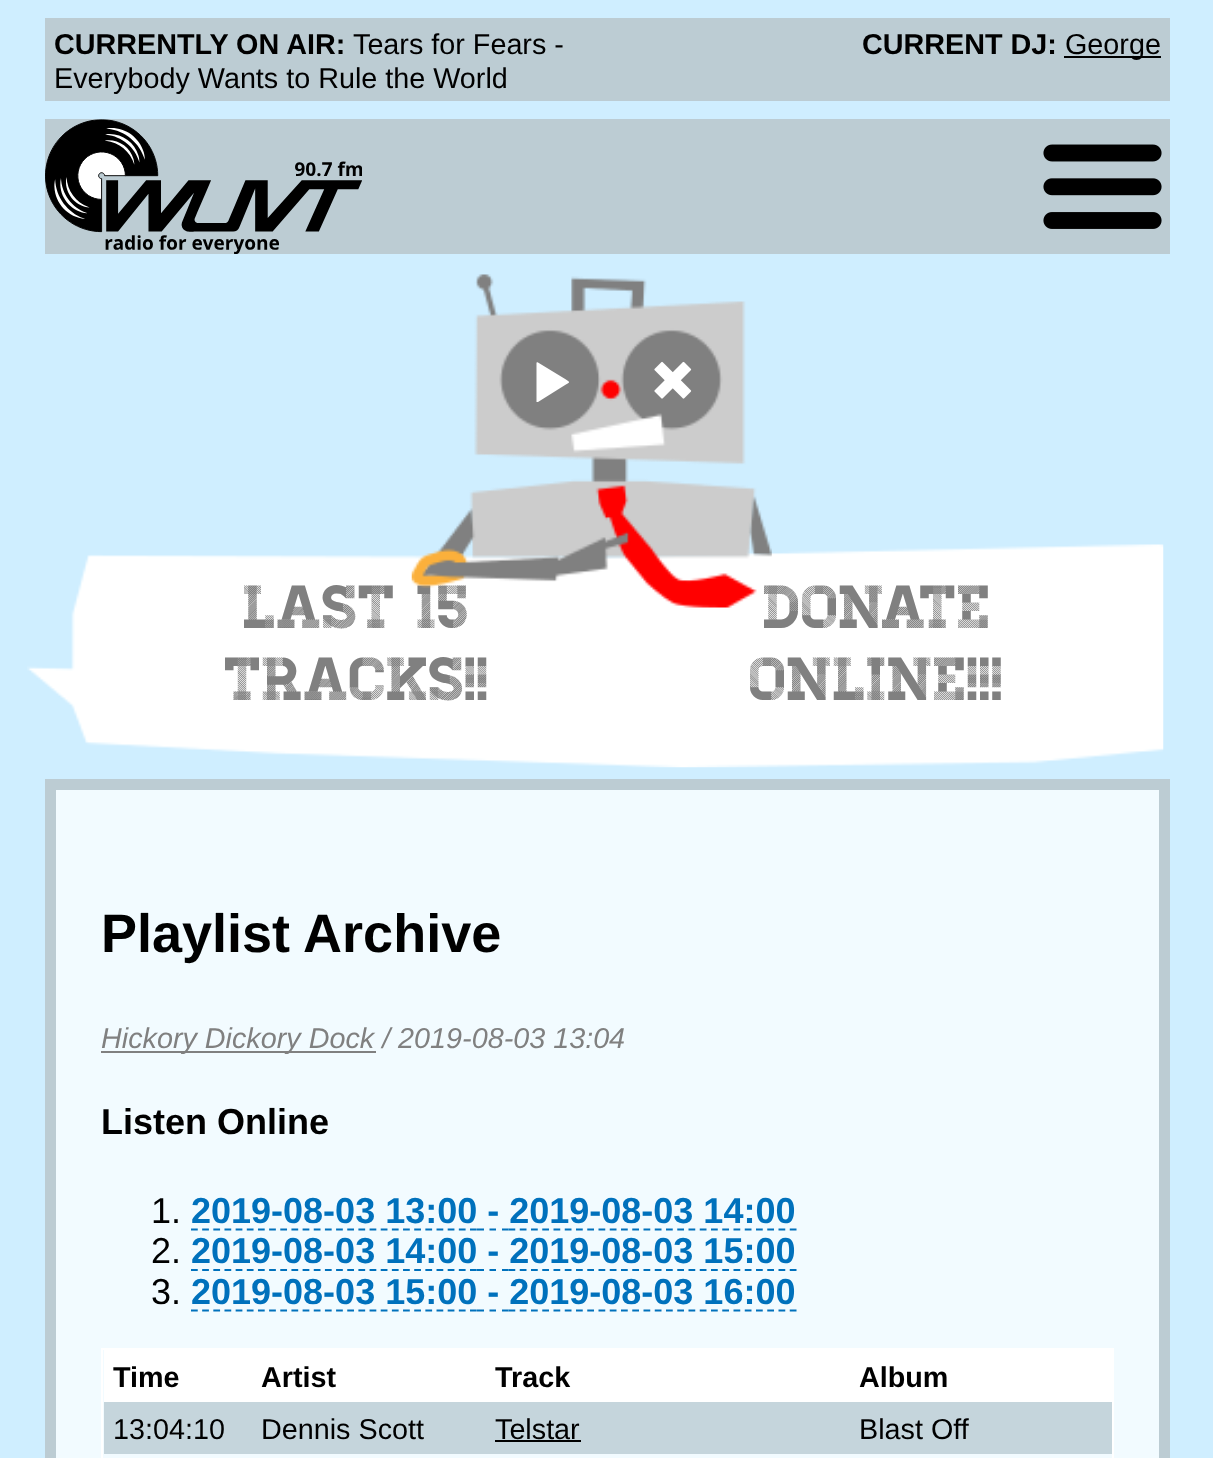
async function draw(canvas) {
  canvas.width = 1213
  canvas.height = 1458
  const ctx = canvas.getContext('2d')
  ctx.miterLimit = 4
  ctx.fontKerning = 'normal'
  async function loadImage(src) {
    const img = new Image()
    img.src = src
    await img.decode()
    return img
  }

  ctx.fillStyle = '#cfeeff'
  ctx.fillRect(0, 0, 1213, 1458)
  ctx.fillStyle = '#bcccd3'
  ctx.fillRect(45, 18, 1125, 83)
  ctx.font = 'bold 28.75px Liberation Sans'
  ctx.fillStyle = '#000'
  ctx.fillText('CURRENTLY ON AIR:', 54, 54)
  ctx.font = '28.75px Liberation Sans'
  ctx.fillText('Tears for Fears -', 353, 54)
  ctx.fillText('Everybody Wants to Rule the World', 54, 88)
  ctx.font = 'bold 28.75px Liberation Sans'
  ctx.fillText('CURRENT DJ:', 862, 54)
  ctx.fillRect(1064, 56, 97, 2)
  ctx.font = '28.75px Liberation Sans'
  ctx.fillText('George', 1065, 54)
  ctx.fillStyle = '#bcccd3'
  ctx.fillRect(45, 119, 1125, 135)
  ctx.drawImage(await loadImage('image0.png'), 45, 119, 317, 135)
  ctx.drawImage(await loadImage('image1.png'), 1043, 144, 119, 85)
  ctx.drawImage(await loadImage('image4.png'), 27, 544, 1137, 224)
  ctx.font = '60.75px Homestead'
  ctx.fillStyle = '#808080'
  ctx.fillText('LAST 15', 244, 628)
  ctx.fillText('DONATE', 764, 628)
  ctx.drawImage(await loadImage('image2.png'), 411, 274, 361, 334)
  ctx.fillStyle = '#fff'
  ctx.beginPath()
  ctx.moveTo(538, 362.5)
  ctx.lineTo(563.5, 378)
  ctx.bezierCurveTo(571, 383, 571, 381.5, 563.5, 386)
  ctx.lineTo(538, 402)
  ctx.bezierCurveTo(537.5, 402, 537, 402, 536.5, 402)
  ctx.lineTo(536.5, 363)
  ctx.bezierCurveTo(536.5, 362, 537, 362, 538, 362.5)
  ctx.closePath()
  ctx.fill()
  ctx.drawImage(await loadImage('image3.png'), 654, 361, 38, 38)
  ctx.fillStyle = '#808080'
  ctx.fillText('TRACKS!!', 225, 700)
  ctx.fillText('ONLINE!!!', 750, 700)
  ctx.fillStyle = '#f2fbff'
  ctx.beginPath()
  ctx.rect(50.5, 784.5, 1114, 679)
  ctx.fill()
  ctx.strokeStyle = '#bcccd3'
  ctx.lineWidth = 11
  ctx.stroke()
  ctx.font = 'bold 54px Liberation Sans'
  ctx.fillStyle = '#000'
  ctx.fillText('Playlist Archive', 101, 952)
  ctx.fillStyle = '#808080'
  ctx.fillRect(101, 1051, 275, 2)
  ctx.font = 'italic 28.75px Liberation Sans'
  ctx.fillText('Hickory Dickory Dock / 2019-08-03 13:04', 101, 1048)
  ctx.font = 'bold 36px Liberation Sans'
  ctx.fillStyle = '#000'
  ctx.fillText('Listen Online', 101, 1134)
  ctx.font = '36px Liberation Sans'
  ctx.fillText('1.', 151, 1223)
  ctx.font = 'bold 36px Liberation Sans'
  ctx.fillStyle = '#0071bc'
  ctx.fillText('2019-08-03 13:00 - 2019-08-03 14:00', 191, 1223)
  ctx.beginPath()
  ctx.moveTo(191, 1229.5)
  ctx.lineTo(477, 1229.5)
  ctx.strokeStyle = '#0071bc'
  ctx.lineWidth = 2.2
  ctx.setLineDash([6.75, 4.41])
  ctx.stroke()
  ctx.beginPath()
  ctx.moveTo(477, 1229.5)
  ctx.lineTo(484, 1229.5)
  ctx.moveTo(489.5, 1229.5)
  ctx.lineTo(496, 1229.5)
  ctx.moveTo(502, 1229.5)
  ctx.lineTo(508.5, 1229.5)
  ctx.setLineDash([])
  ctx.stroke()
  ctx.beginPath()
  ctx.moveTo(508.5, 1229.5)
  ctx.lineTo(796.5, 1229.5)
  ctx.setLineDash([6.75, 4.5])
  ctx.stroke()
  ctx.font = '36px Liberation Sans'
  ctx.fillStyle = '#000'
  ctx.fillText('2.', 151, 1263)
  ctx.font = 'bold 36px Liberation Sans'
  ctx.fillStyle = '#0071bc'
  ctx.fillText('2019-08-03 14:00 - 2019-08-03 15:00', 191, 1263)
  ctx.beginPath()
  ctx.moveTo(191, 1270)
  ctx.lineTo(477, 1270)
  ctx.setLineDash([6.75, 4.41])
  ctx.stroke()
  ctx.beginPath()
  ctx.moveTo(477, 1270)
  ctx.lineTo(484, 1270)
  ctx.moveTo(489.5, 1270)
  ctx.lineTo(496, 1270)
  ctx.moveTo(502, 1270)
  ctx.lineTo(508.5, 1270)
  ctx.setLineDash([])
  ctx.stroke()
  ctx.beginPath()
  ctx.moveTo(508.5, 1270)
  ctx.lineTo(796.5, 1270)
  ctx.setLineDash([6.75, 4.5])
  ctx.stroke()
  ctx.font = '36px Liberation Sans'
  ctx.fillStyle = '#000'
  ctx.fillText('3.', 151, 1304)
  ctx.font = 'bold 36px Liberation Sans'
  ctx.fillStyle = '#0071bc'
  ctx.fillText('2019-08-03 15:00 - 2019-08-03 16:00', 191, 1304)
  ctx.beginPath()
  ctx.moveTo(191, 1310.5)
  ctx.lineTo(477, 1310.5)
  ctx.setLineDash([6.75, 4.41])
  ctx.stroke()
  ctx.beginPath()
  ctx.moveTo(477, 1310.5)
  ctx.lineTo(484, 1310.5)
  ctx.moveTo(489.5, 1310.5)
  ctx.lineTo(496, 1310.5)
  ctx.moveTo(502, 1310.5)
  ctx.lineTo(508.5, 1310.5)
  ctx.setLineDash([])
  ctx.stroke()
  ctx.beginPath()
  ctx.moveTo(508.5, 1310.5)
  ctx.lineTo(796.5, 1310.5)
  ctx.setLineDash([6.75, 4.5])
  ctx.stroke()
  ctx.fillStyle = '#fff'
  ctx.fillRect(101, 1348, 1013, 2)
  ctx.fillRect(1112, 1348, 2, 110)
  ctx.fillRect(101, 1348, 2, 110)
  ctx.fillRect(104, 1350, 1008, 52)
  ctx.font = 'bold 28.75px Liberation Sans'
  ctx.fillStyle = '#000'
  ctx.fillText('Time', 113, 1387)
  ctx.fillText('Artist', 261, 1387)
  ctx.fillText('Track', 495, 1387)
  ctx.fillText('Album', 859, 1387)
  ctx.fillStyle = '#c5d5dc'
  ctx.fillRect(104, 1402, 1008, 52)
  ctx.font = '28.75px Liberation Sans'
  ctx.fillStyle = '#000'
  ctx.fillText('13:04:10', 113, 1439)
  ctx.fillText('Dennis Scott', 261, 1439)
  ctx.fillText('Telstar', 495, 1439)
  ctx.fillRect(495, 1440, 86, 2)
  ctx.fillText('Blast Off', 859, 1439)
}

draw(document.querySelector('canvas'))
